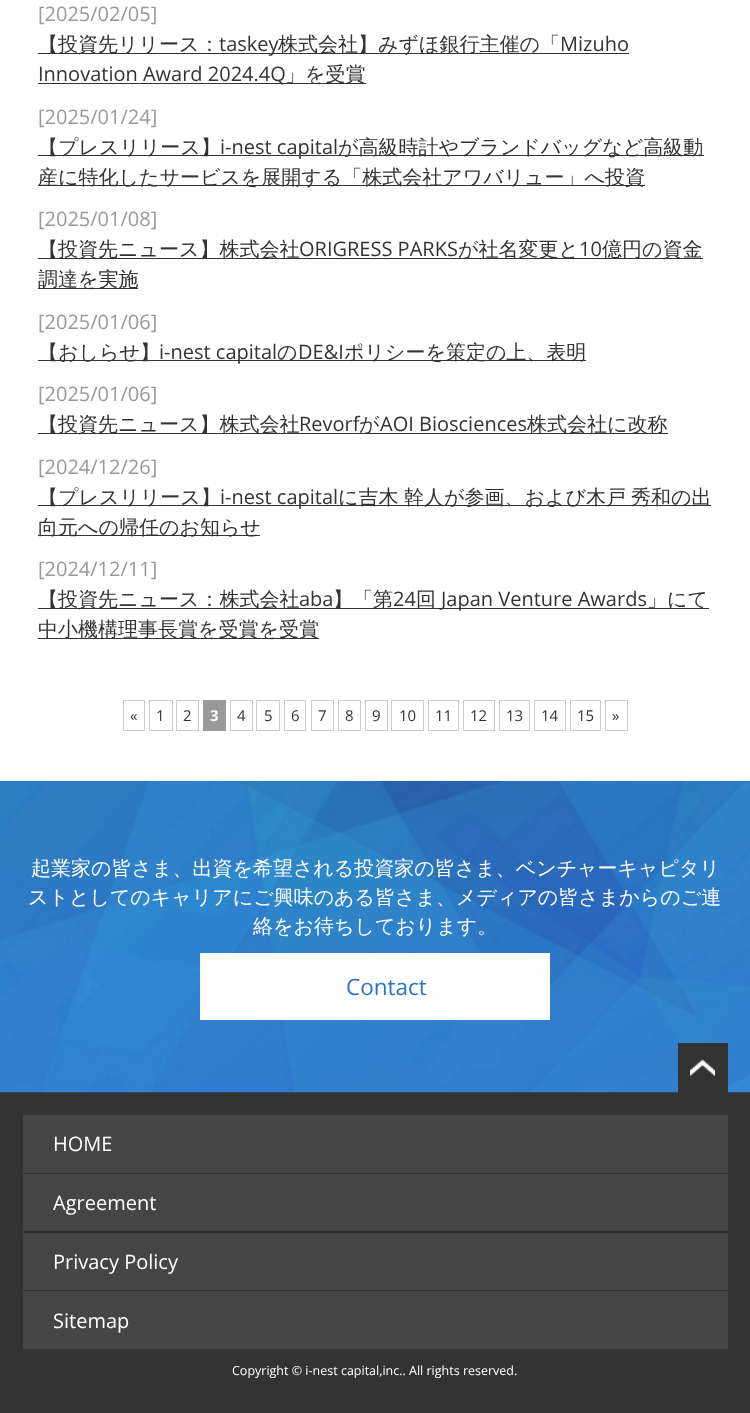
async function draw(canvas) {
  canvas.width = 750
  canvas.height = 1413
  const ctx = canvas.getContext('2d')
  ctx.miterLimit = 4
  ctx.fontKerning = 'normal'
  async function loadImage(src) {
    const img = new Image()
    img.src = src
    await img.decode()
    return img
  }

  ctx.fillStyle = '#fff'
  ctx.fillRect(0, 0, 750, 1413)
  ctx.font = '20px Open Sans'
  ctx.fillStyle = '#999'
  ctx.fillText('[2025/02/05]', 38, 21)
  ctx.fillStyle = '#333'
  ctx.fillRect(38, 53, 591, 1)
  ctx.font = '500 20px WenQuanYi Zen Hei'
  ctx.fillText('【投資先リリース：', 38, 51)
  ctx.font = '20px Open Sans'
  ctx.fillText('taskey', 219, 51)
  ctx.font = '500 20px WenQuanYi Zen Hei'
  ctx.fillText('株式会社】みずほ銀行主催の「', 278, 51)
  ctx.font = '20px Open Sans'
  ctx.fillText('Mizuho', 560, 51)
  ctx.fillRect(38, 83, 328, 1)
  ctx.fillText('Innovation Award 2024.4Q', 38, 81)
  ctx.font = '500 20px WenQuanYi Zen Hei'
  ctx.fillText('」を受賞', 285, 81)
  ctx.font = '20px Open Sans'
  ctx.fillStyle = '#999'
  ctx.fillText('[2025/01/24]', 38, 124)
  ctx.fillStyle = '#333'
  ctx.fillRect(38, 155, 666, 1)
  ctx.font = '500 20px WenQuanYi Zen Hei'
  ctx.fillText('【プレスリリース】', 38, 154)
  ctx.font = '20px Open Sans'
  ctx.fillText('i-nest capital', 220, 154)
  ctx.font = '500 20px WenQuanYi Zen Hei'
  ctx.fillText('が高級時計やブランドバッグなど高級動', 338, 154)
  ctx.fillRect(38, 185, 607, 1)
  ctx.fillText('産に特化したサービスを展開する「株式会社アワバリュー」へ投資', 38, 184)
  ctx.font = '20px Open Sans'
  ctx.fillStyle = '#999'
  ctx.fillText('[2025/01/08]', 38, 226)
  ctx.fillStyle = '#333'
  ctx.fillRect(38, 258, 665, 1)
  ctx.font = '500 20px WenQuanYi Zen Hei'
  ctx.fillText('【投資先ニュース】株式会社', 38, 256)
  ctx.font = '20px Open Sans'
  ctx.fillText('ORIGRESS PARKS', 299, 256)
  ctx.font = '500 20px WenQuanYi Zen Hei'
  ctx.fillText('が社名変更と', 458, 256)
  ctx.font = '20px Open Sans'
  ctx.fillText('10', 579, 256)
  ctx.font = '500 20px WenQuanYi Zen Hei'
  ctx.fillText('億円の資金', 602, 256)
  ctx.fillRect(38, 288, 100, 1)
  ctx.fillText('調達を実施', 38, 286)
  ctx.font = '20px Open Sans'
  ctx.fillStyle = '#999'
  ctx.fillText('[2025/01/06]', 38, 329)
  ctx.fillStyle = '#333'
  ctx.fillRect(38, 360, 548, 1)
  ctx.font = '500 20px WenQuanYi Zen Hei'
  ctx.fillText('【おしらせ】', 38, 359)
  ctx.font = '20px Open Sans'
  ctx.fillText('i-nest capital', 159, 359)
  ctx.font = '500 20px WenQuanYi Zen Hei'
  ctx.fillText('の', 277, 359)
  ctx.font = '20px Open Sans'
  ctx.fillText('DE&I', 298, 359)
  ctx.font = '500 20px WenQuanYi Zen Hei'
  ctx.fillText('ポリシーを策定の上、表明', 344, 359)
  ctx.font = '20px Open Sans'
  ctx.fillStyle = '#999'
  ctx.fillText('[2025/01/06]', 38, 401)
  ctx.fillStyle = '#333'
  ctx.fillRect(38, 433, 630, 1)
  ctx.font = '500 20px WenQuanYi Zen Hei'
  ctx.fillText('【投資先ニュース】株式会社', 38, 431)
  ctx.font = '20px Open Sans'
  ctx.fillText('Revorf', 299, 431)
  ctx.font = '500 20px WenQuanYi Zen Hei'
  ctx.fillText('が', 359, 431)
  ctx.font = '20px Open Sans'
  ctx.fillText('AOI Biosciences', 380, 431)
  ctx.font = '500 20px WenQuanYi Zen Hei'
  ctx.fillText('株式会社に改称', 527, 431)
  ctx.font = '20px Open Sans'
  ctx.fillStyle = '#999'
  ctx.fillText('[2024/12/26]', 38, 474)
  ctx.fillStyle = '#333'
  ctx.fillRect(38, 505, 673, 1)
  ctx.font = '500 20px WenQuanYi Zen Hei'
  ctx.fillText('【プレスリリース】', 38, 504)
  ctx.font = '20px Open Sans'
  ctx.fillText('i-nest capital', 220, 504)
  ctx.font = '500 20px WenQuanYi Zen Hei'
  ctx.fillText('に吉木', 338, 504)
  ctx.fillText('幹人が参画、および木戸', 404, 504)
  ctx.fillText('秀和の出', 631, 504)
  ctx.fillRect(38, 535, 222, 1)
  ctx.fillText('向元への帰任のお知らせ', 38, 534)
  ctx.font = '20px Open Sans'
  ctx.fillStyle = '#999'
  ctx.fillText('[2024/12/11]', 38, 576)
  ctx.fillStyle = '#333'
  ctx.fillRect(38, 608, 671, 1)
  ctx.font = '500 20px WenQuanYi Zen Hei'
  ctx.fillText('【投資先ニュース：株式会社', 38, 606)
  ctx.font = '20px Open Sans'
  ctx.fillText('aba', 299, 606)
  ctx.font = '500 20px WenQuanYi Zen Hei'
  ctx.fillText('】「第', 333, 606)
  ctx.font = '20px Open Sans'
  ctx.fillText('24', 393, 606)
  ctx.font = '500 20px WenQuanYi Zen Hei'
  ctx.fillText('回', 416, 606)
  ctx.font = '20px Open Sans'
  ctx.fillText('Japan Venture Awards', 441, 606)
  ctx.font = '500 20px WenQuanYi Zen Hei'
  ctx.fillText('」にて', 647, 606)
  ctx.fillRect(38, 638, 281, 1)
  ctx.fillText('中小機構理事長賞を受賞を受賞', 38, 636)
  ctx.strokeStyle = '#ccc'
  ctx.strokeRect(123.5, 700.5, 21, 30)
  ctx.font = '15px Open Sans'
  ctx.fillText('«', 130, 721)
  ctx.strokeRect(149.5, 700.5, 23, 30)
  ctx.fillText('1', 156, 721)
  ctx.strokeRect(176.5, 700.5, 22, 30)
  ctx.fillText('2', 183, 721)
  ctx.fillStyle = '#999'
  ctx.fillRect(203, 700, 23, 31)
  ctx.font = 'bold 15px Open Sans'
  ctx.fillStyle = '#fff'
  ctx.fillText('3', 210, 721)
  ctx.strokeRect(230.5, 700.5, 22, 30)
  ctx.font = '15px Open Sans'
  ctx.fillStyle = '#333'
  ctx.fillText('4', 237, 721)
  ctx.strokeRect(256.5, 700.5, 23, 30)
  ctx.fillText('5', 264, 721)
  ctx.strokeRect(284.5, 700.5, 21, 30)
  ctx.fillText('6', 291, 721)
  ctx.strokeRect(311.5, 700.5, 22, 30)
  ctx.fillText('7', 318, 721)
  ctx.strokeRect(338.5, 700.5, 22, 30)
  ctx.fillText('8', 345, 721)
  ctx.strokeRect(365.5, 700.5, 22, 30)
  ctx.fillText('9', 372, 721)
  ctx.strokeRect(391.5, 700.5, 32, 30)
  ctx.fillText('10', 399, 721)
  ctx.strokeRect(428.5, 700.5, 30, 30)
  ctx.fillText('11', 435, 721)
  ctx.strokeRect(463.5, 700.5, 31, 30)
  ctx.fillText('12', 470, 721)
  ctx.strokeRect(499.5, 700.5, 30, 30)
  ctx.fillText('13', 506, 721)
  ctx.strokeRect(534.5, 700.5, 31, 30)
  ctx.fillText('14', 541, 721)
  ctx.strokeRect(570.5, 700.5, 30, 30)
  ctx.fillText('15', 577, 721)
  ctx.strokeRect(605.5, 700.5, 22, 30)
  ctx.fillText('»', 612, 721)
  ctx.fillRect(0, 1092, 750, 321)
  ctx.drawImage(await loadImage('image0.png'), 0, 781, 750, 312)
  ctx.font = '500 20px WenQuanYi Zen Hei'
  ctx.fillStyle = '#fff'
  ctx.fillText('起業家の皆さま、出資を希望される投資家の皆さま、ベンチャーキャピタリ', 31, 875)
  ctx.fillText('ストとしてのキャリアにご興味のある皆さま、メディアの皆さまからのご連', 28, 904)
  ctx.fillText('絡をお待ちしております。', 253, 933)
  ctx.fillRect(200, 953, 350, 67)
  ctx.font = '22.5px Open Sans'
  ctx.fillStyle = '#2a74c0'
  ctx.fillText('Contact', 346, 995)
  ctx.fillStyle = '#454545'
  ctx.fillRect(23, 1115, 705, 58)
  ctx.font = '20px Open Sans'
  ctx.fillStyle = '#fff'
  ctx.fillText('HOME', 53, 1151)
  ctx.fillStyle = '#454545'
  ctx.fillRect(23, 1174, 705, 57)
  ctx.fillStyle = '#fff'
  ctx.fillText('Agreement', 53, 1210)
  ctx.fillStyle = '#454545'
  ctx.fillRect(23, 1233, 705, 57)
  ctx.fillStyle = '#fff'
  ctx.fillText('Privacy Policy', 53, 1269)
  ctx.fillStyle = '#454545'
  ctx.fillRect(23, 1291, 705, 58)
  ctx.fillStyle = '#fff'
  ctx.fillText('Sitemap', 53, 1328)
  ctx.font = '12.5px Open Sans'
  ctx.fillText('Copyright © i-nest capital,inc.. All rights reserved.', 232, 1375)
  ctx.fillStyle = '#333'
  ctx.fillRect(678, 1043, 50, 50)
  ctx.drawImage(await loadImage('image1.png'), 690, 1059, 25, 17)
}

draw(document.querySelector('canvas'))
